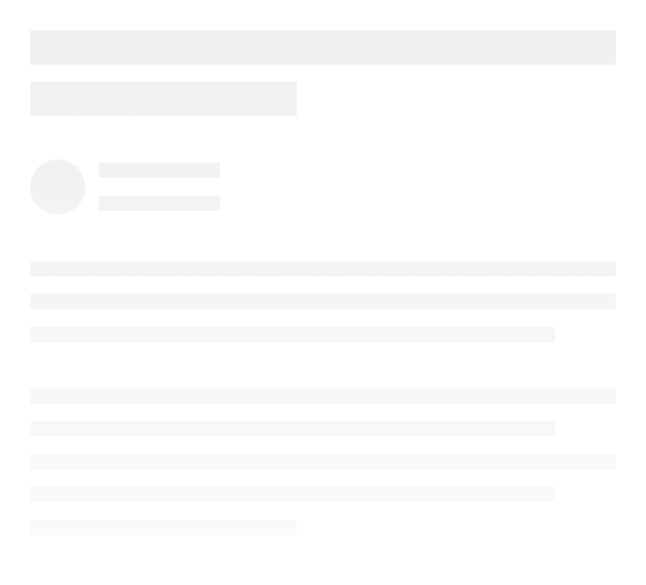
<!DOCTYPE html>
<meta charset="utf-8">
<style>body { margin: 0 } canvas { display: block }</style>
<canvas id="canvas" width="646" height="585"></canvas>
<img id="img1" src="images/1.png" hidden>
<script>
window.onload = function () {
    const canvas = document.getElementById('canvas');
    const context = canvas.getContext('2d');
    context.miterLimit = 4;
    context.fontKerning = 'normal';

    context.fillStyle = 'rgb(255, 255, 255)';
    context.fillRect(0, 0, 646, 585);
    context.drawImage(document.getElementById('img1'), 30, 30, 586, 505);
};
</script>
